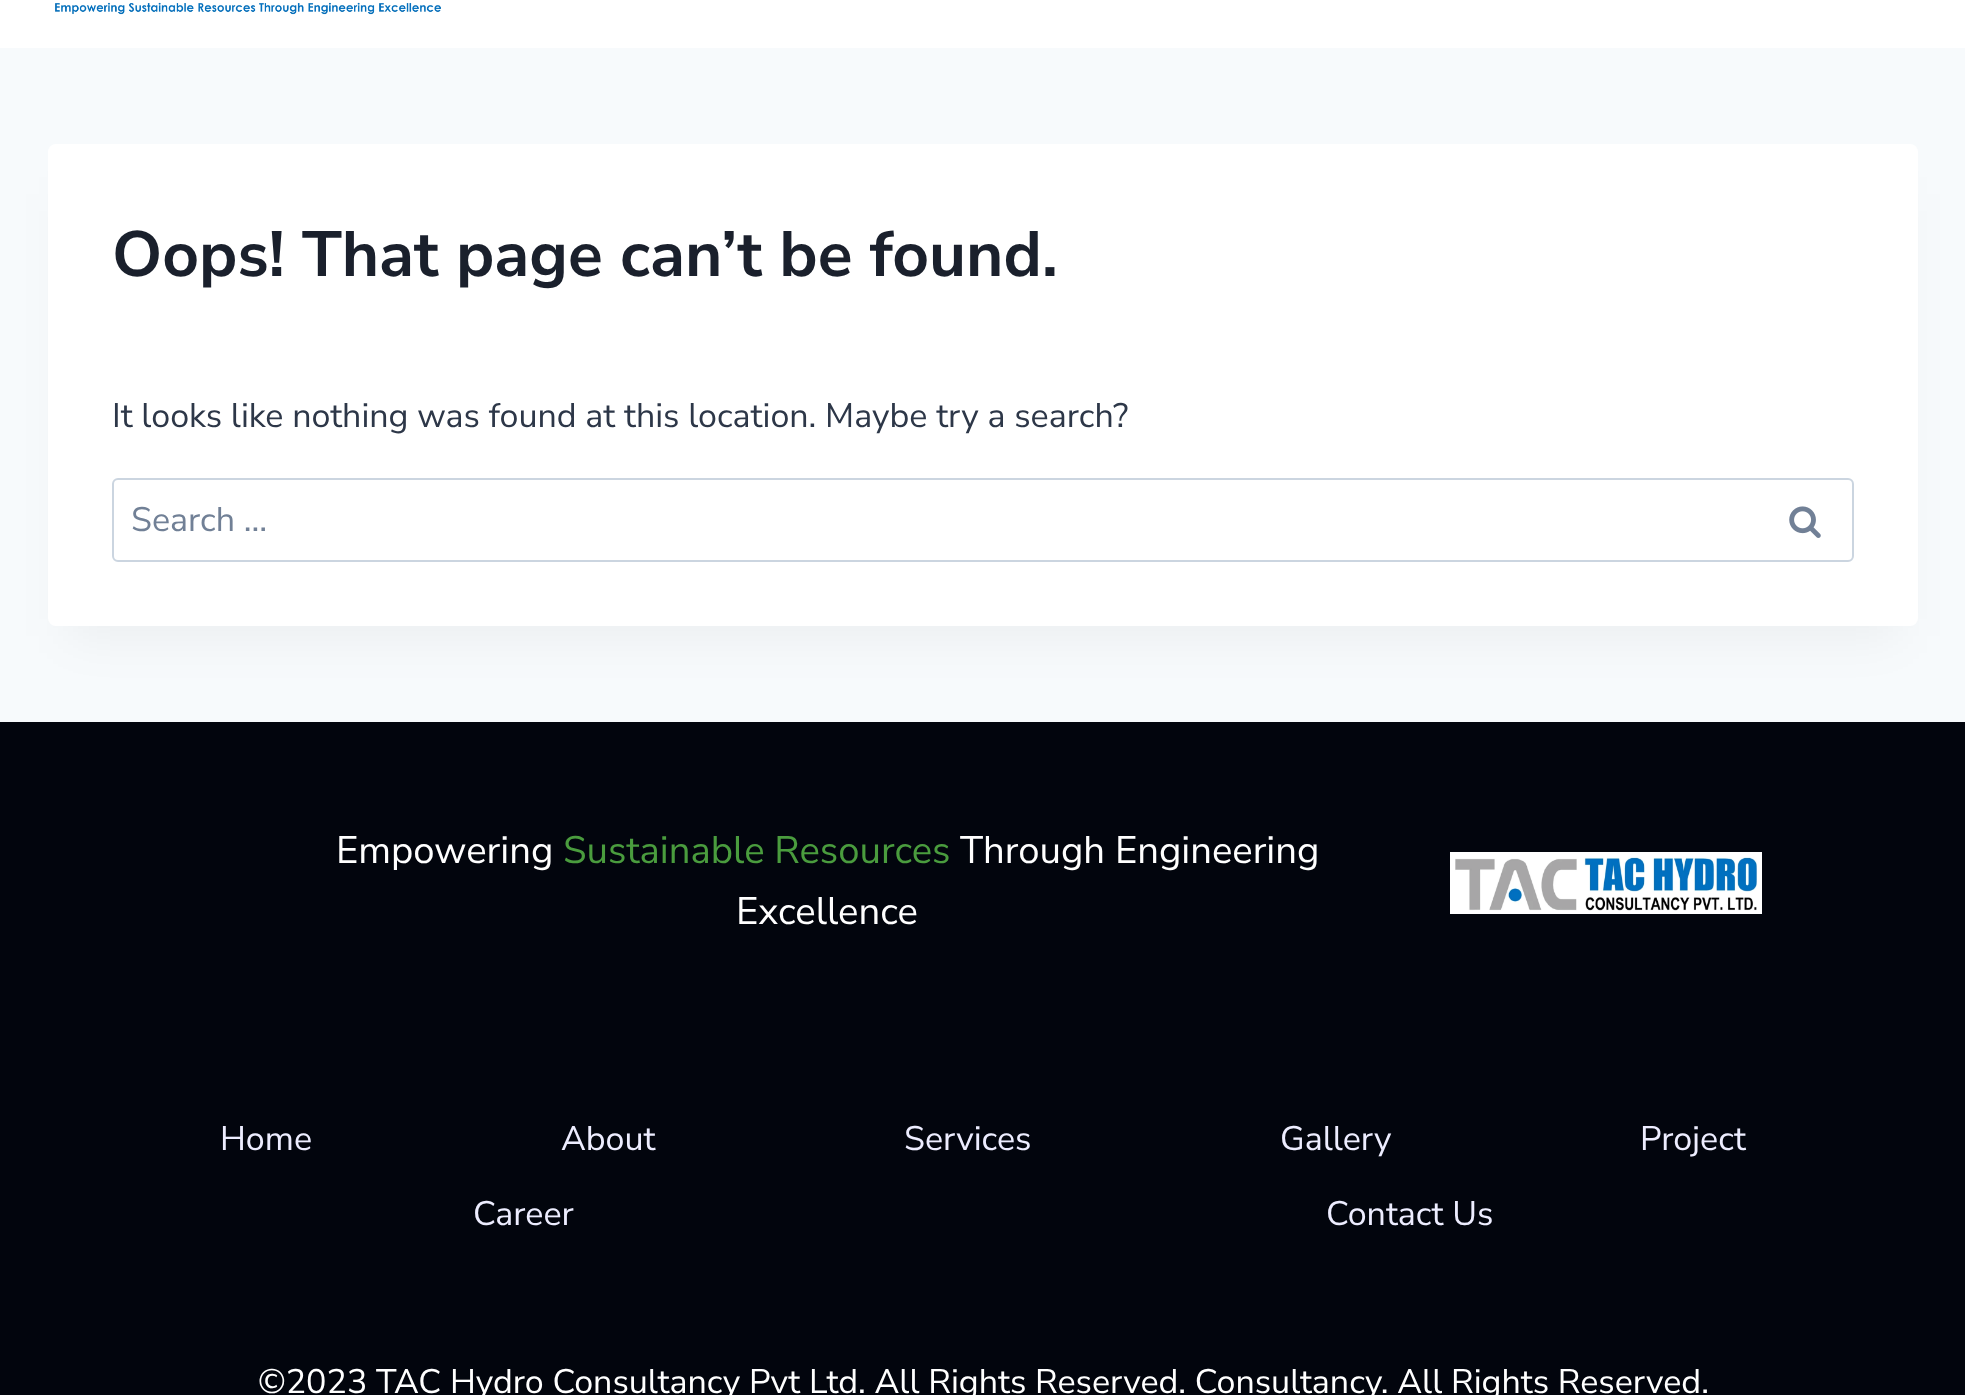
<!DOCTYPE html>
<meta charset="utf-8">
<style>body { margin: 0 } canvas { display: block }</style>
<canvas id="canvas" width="1965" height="1395"></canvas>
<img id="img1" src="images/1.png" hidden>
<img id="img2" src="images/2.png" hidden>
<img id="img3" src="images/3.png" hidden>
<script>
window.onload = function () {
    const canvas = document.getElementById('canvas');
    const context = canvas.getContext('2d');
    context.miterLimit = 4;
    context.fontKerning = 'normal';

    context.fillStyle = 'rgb(247, 250, 252)';
    context.fillRect(0, 0, 1965, 1395);
    context.fillStyle = 'rgb(255, 255, 255)';
    context.fillRect(0, 0, 1965, 48);
    context.drawImage(document.getElementById('img1'), 55, 2, 386, 13);
    context.fillStyle = 'rgba(0, 0, 0, 0.05)';
    context.filter = 'blur(25px)';
    context.beginPath();
    context.rect(68, 194, 1830, 442);
    context.fill();
    context.filter = 'none';
    context.fillStyle = 'rgb(255, 255, 255)';
    context.beginPath();
    context.roundRect(48, 144, 1870, 482, 8);
    context.fill();
    context.beginPath();
    context.roundRect(113, 479, 1740, 82, 5);
    context.strokeStyle = 'rgb(203, 213, 224)';
    context.lineWidth = 2;
    context.stroke();
    context.drawImage(document.getElementById('img2'), 1789, 506, 32, 32);
    context.fillStyle = 'rgb(2, 5, 13)';
    context.fillRect(0, 722, 1965, 673);
    context.drawImage(document.getElementById('img3'), 1450, 852, 312, 62);
    context.font = 'bold 64px Nunito Sans';
    context.fillStyle = 'rgb(26, 32, 44)';
    context.fillText('Oops! That page can’t be found.', 112, 276);
    context.font = '34px Nunito Sans';
    context.fillStyle = 'rgb(45, 55, 72)';
    context.fillText('It looks like nothing was found at this location. Maybe try a search?', 112, 427);
    context.fillStyle = 'rgb(113, 128, 150)';
    context.fillText('Search …', 131, 531);
    context.font = '38.25px Nunito Sans';
    context.fillStyle = 'rgb(255, 255, 255)';
    context.fillText('Empowering', 336, 863);
    context.fillStyle = 'rgb(74, 156, 62)';
    context.fillText('Sustainable Resources', 563, 863);
    context.fillStyle = 'rgb(255, 255, 255)';
    context.fillText('Through Engineering', 960, 863);
    context.fillText('Excellence', 736, 924);
    context.font = '34px Nunito Sans';
    context.fillStyle = 'rgb(237, 237, 255)';
    context.fillText('Home', 220, 1150);
    context.fillText('About', 561, 1150);
    context.fillText('Services', 904, 1150);
    context.fillText('Gallery', 1280, 1150);
    context.fillText('Project', 1640, 1150);
    context.fillText('Career', 473, 1225);
    context.fillText('Contact Us', 1326, 1225);
    context.fillStyle = 'rgb(255, 255, 255)';
    context.fillText('©2023 TAC Hydro Consultancy Pvt Ltd. All Rights Reserved. Consultancy. All Rights Reserved.', 258, 1393);
};
</script>
